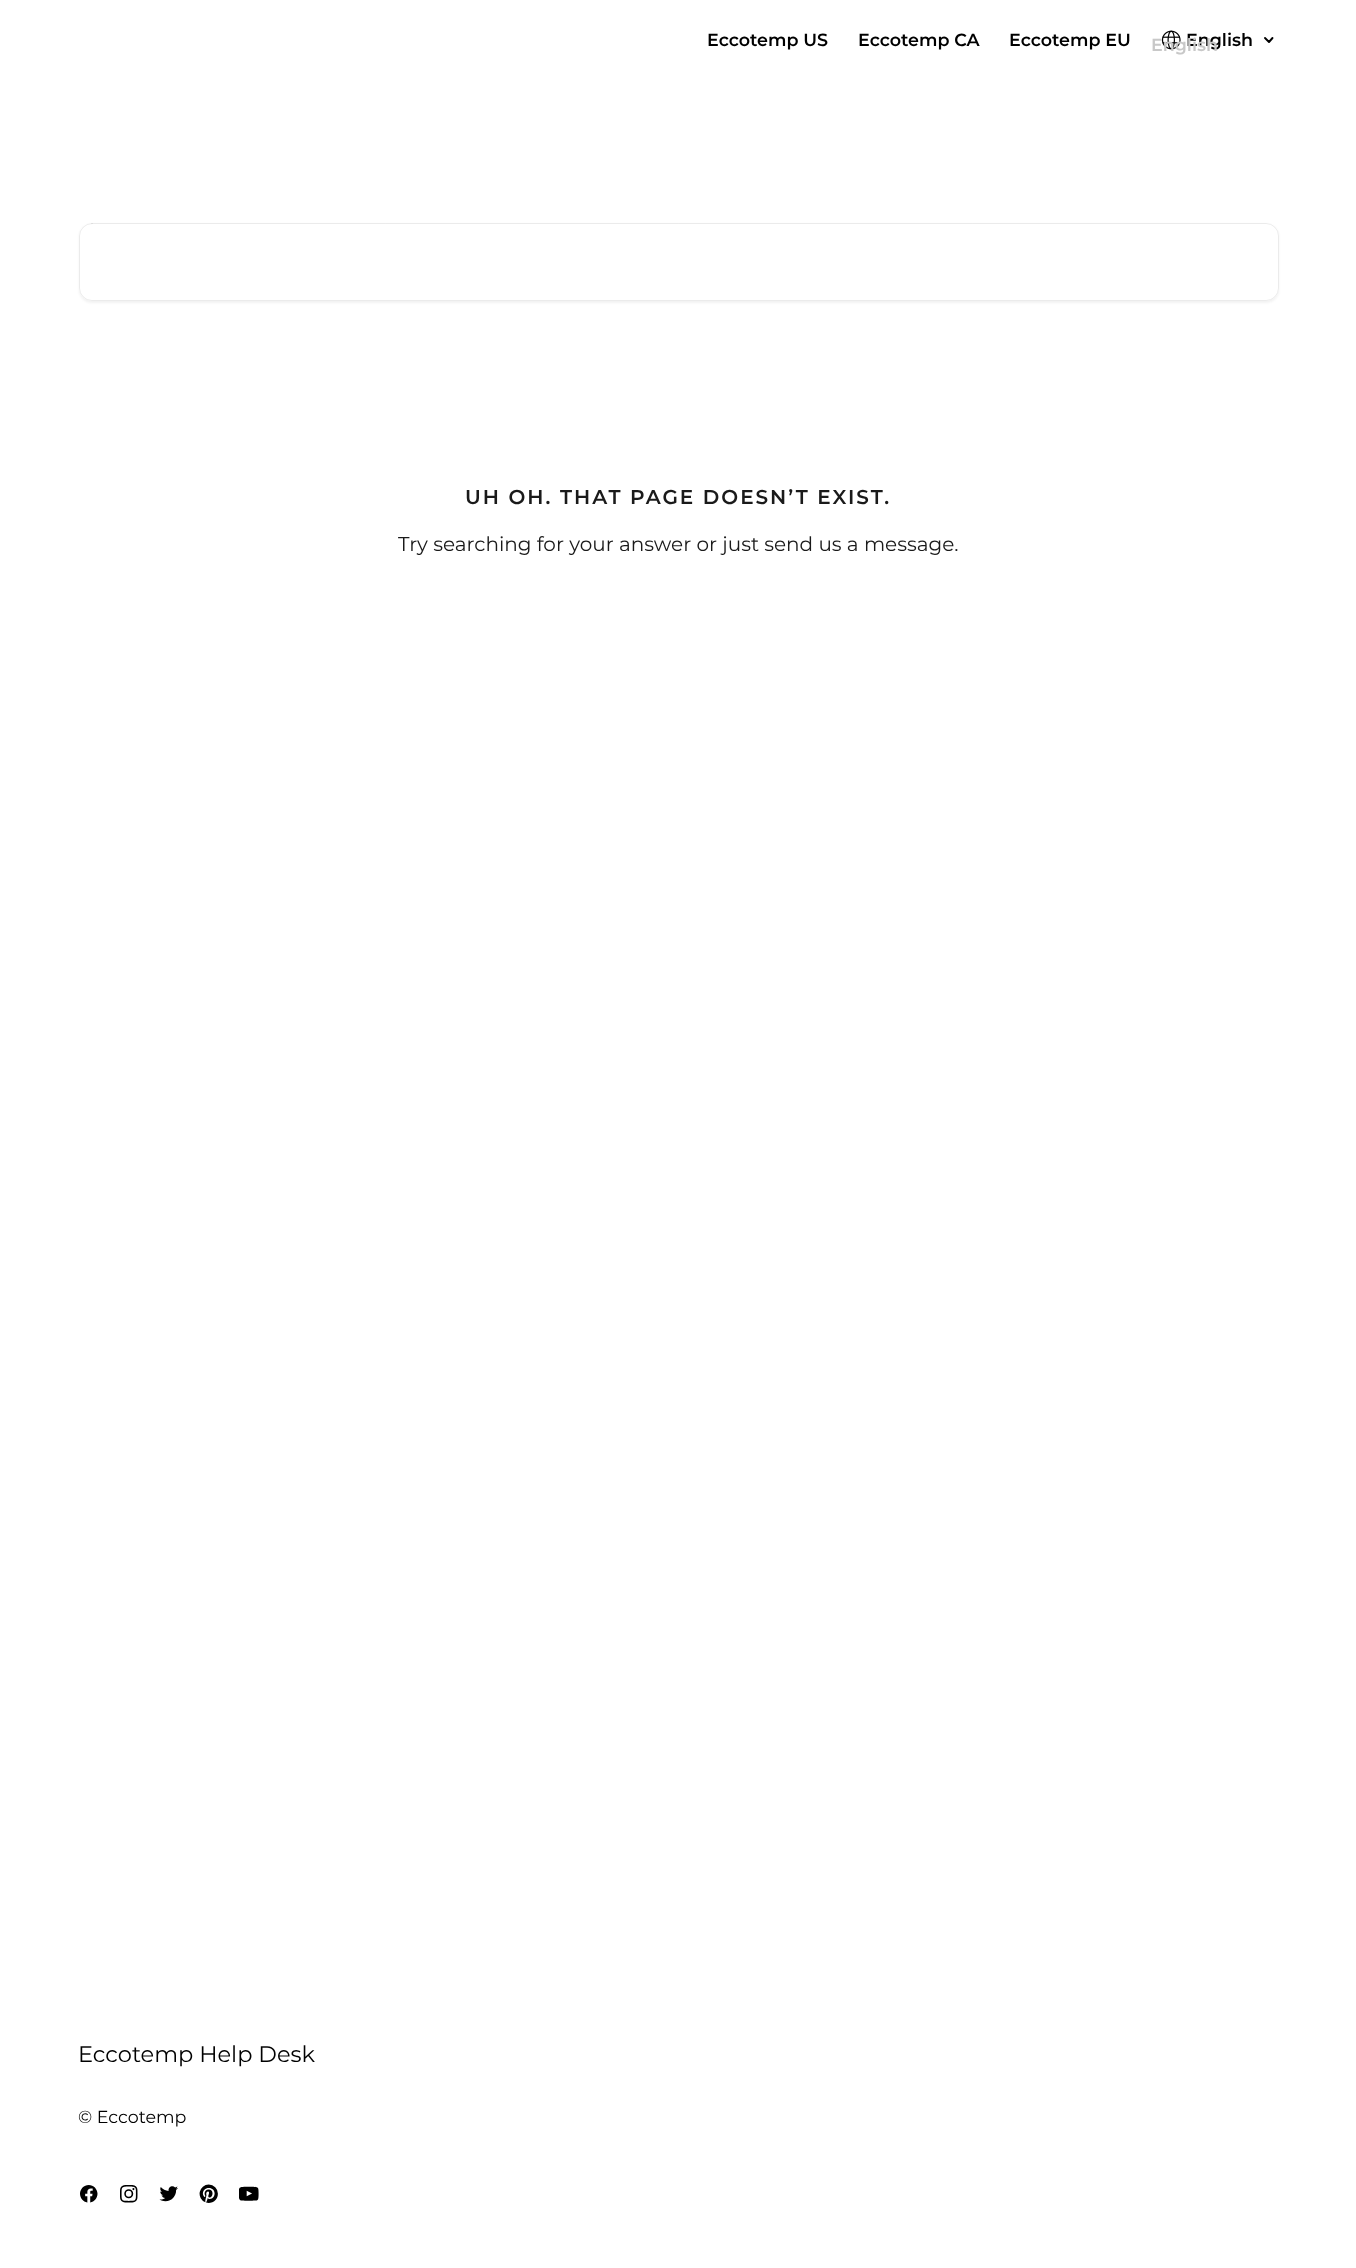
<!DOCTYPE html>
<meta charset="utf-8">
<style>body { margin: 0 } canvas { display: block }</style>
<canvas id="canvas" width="1356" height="2268"></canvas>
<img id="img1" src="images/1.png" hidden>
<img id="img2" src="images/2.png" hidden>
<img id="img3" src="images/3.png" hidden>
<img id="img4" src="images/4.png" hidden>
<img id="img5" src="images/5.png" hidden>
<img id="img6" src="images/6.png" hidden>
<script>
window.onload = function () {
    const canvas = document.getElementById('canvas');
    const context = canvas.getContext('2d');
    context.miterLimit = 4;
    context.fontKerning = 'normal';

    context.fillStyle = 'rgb(255, 255, 255)';
    context.fillRect(0, 0, 1356, 2268);
    context.drawImage(document.getElementById('img1'), 1161, 30, 20, 20);
    context.beginPath();
    context.moveTo(1265, 38);
    context.lineTo(1269, 42);
    context.lineTo(1272.5, 38);
    context.strokeStyle = 'rgb(0, 0, 0)';
    context.lineWidth = 1.9;
    context.lineCap = 'round';
    context.lineJoin = 'round';
    context.stroke();
    context.save();
    context.beginPath();
    context.moveTo(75, 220);
    context.lineTo(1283, 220);
    context.lineTo(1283, 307);
    context.lineTo(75, 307);
    context.closePath();
    context.moveTo(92, 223);
    context.lineTo(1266, 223);
    context.bezierCurveTo(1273, 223, 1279, 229, 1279, 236);
    context.lineTo(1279, 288);
    context.bezierCurveTo(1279, 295, 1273, 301, 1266, 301);
    context.lineTo(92, 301);
    context.bezierCurveTo(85, 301, 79, 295, 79, 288);
    context.lineTo(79, 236);
    context.bezierCurveTo(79, 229, 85, 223, 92, 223);
    context.closePath();
    context.clip('evenodd');
    context.fillStyle = 'rgba(0, 0, 0, 0.05)';
    context.filter = 'blur(1px)';
    context.beginPath();
    context.roundRect(79, 224, 1200, 79, 13);
    context.fill();
    context.filter = 'none';
    context.restore();
    context.beginPath();
    context.roundRect(79.5, 223.5, 1199, 77, 12.5);
    context.strokeStyle = 'rgba(0, 0, 0, 0.08)';
    context.lineWidth = 1;
    context.lineJoin = 'miter';
    context.stroke();
    context.drawImage(document.getElementById('img2'), 80, 2185, 18, 18);
    context.drawImage(document.getElementById('img3'), 120, 2185, 18, 18);
    context.drawImage(document.getElementById('img4'), 159, 2186, 19, 16);
    context.drawImage(document.getElementById('img5'), 199, 2184, 19, 19);
    context.drawImage(document.getElementById('img6'), 239, 2186, 20, 15);
    context.font = '600 17.5px Montserrat';
    context.fillStyle = 'rgb(0, 0, 0)';
    context.fillText('Eccotemp US', 707, 46);
    context.fillText('Eccotemp CA', 858, 46);
    context.fillText('Eccotemp EU', 1009, 46);
    context.fillText('English', 1186, 46);
    context.fillStyle = 'rgb(200, 200, 200)';
    context.fillText('English', 1151, 51);
    context.letterSpacing = '2px';
    context.font = '600 20px Montserrat';
    context.fillStyle = 'rgb(26, 26, 26)';
    context.fillText('UH OH. THAT PAGE DOESN’T EXIST.', 465, 504);
    context.letterSpacing = '0px';
    context.font = '20px Montserrat';
    context.fillText('Try searching for your answer or just send us a message.', 398, 551);
    context.font = '22.5px Montserrat';
    context.fillStyle = 'rgb(0, 0, 0)';
    context.fillText('Eccotemp Help Desk', 78, 2062);
    context.font = '17.5px Montserrat';
    context.fillText('© Eccotemp', 78, 2123);
};
</script>
